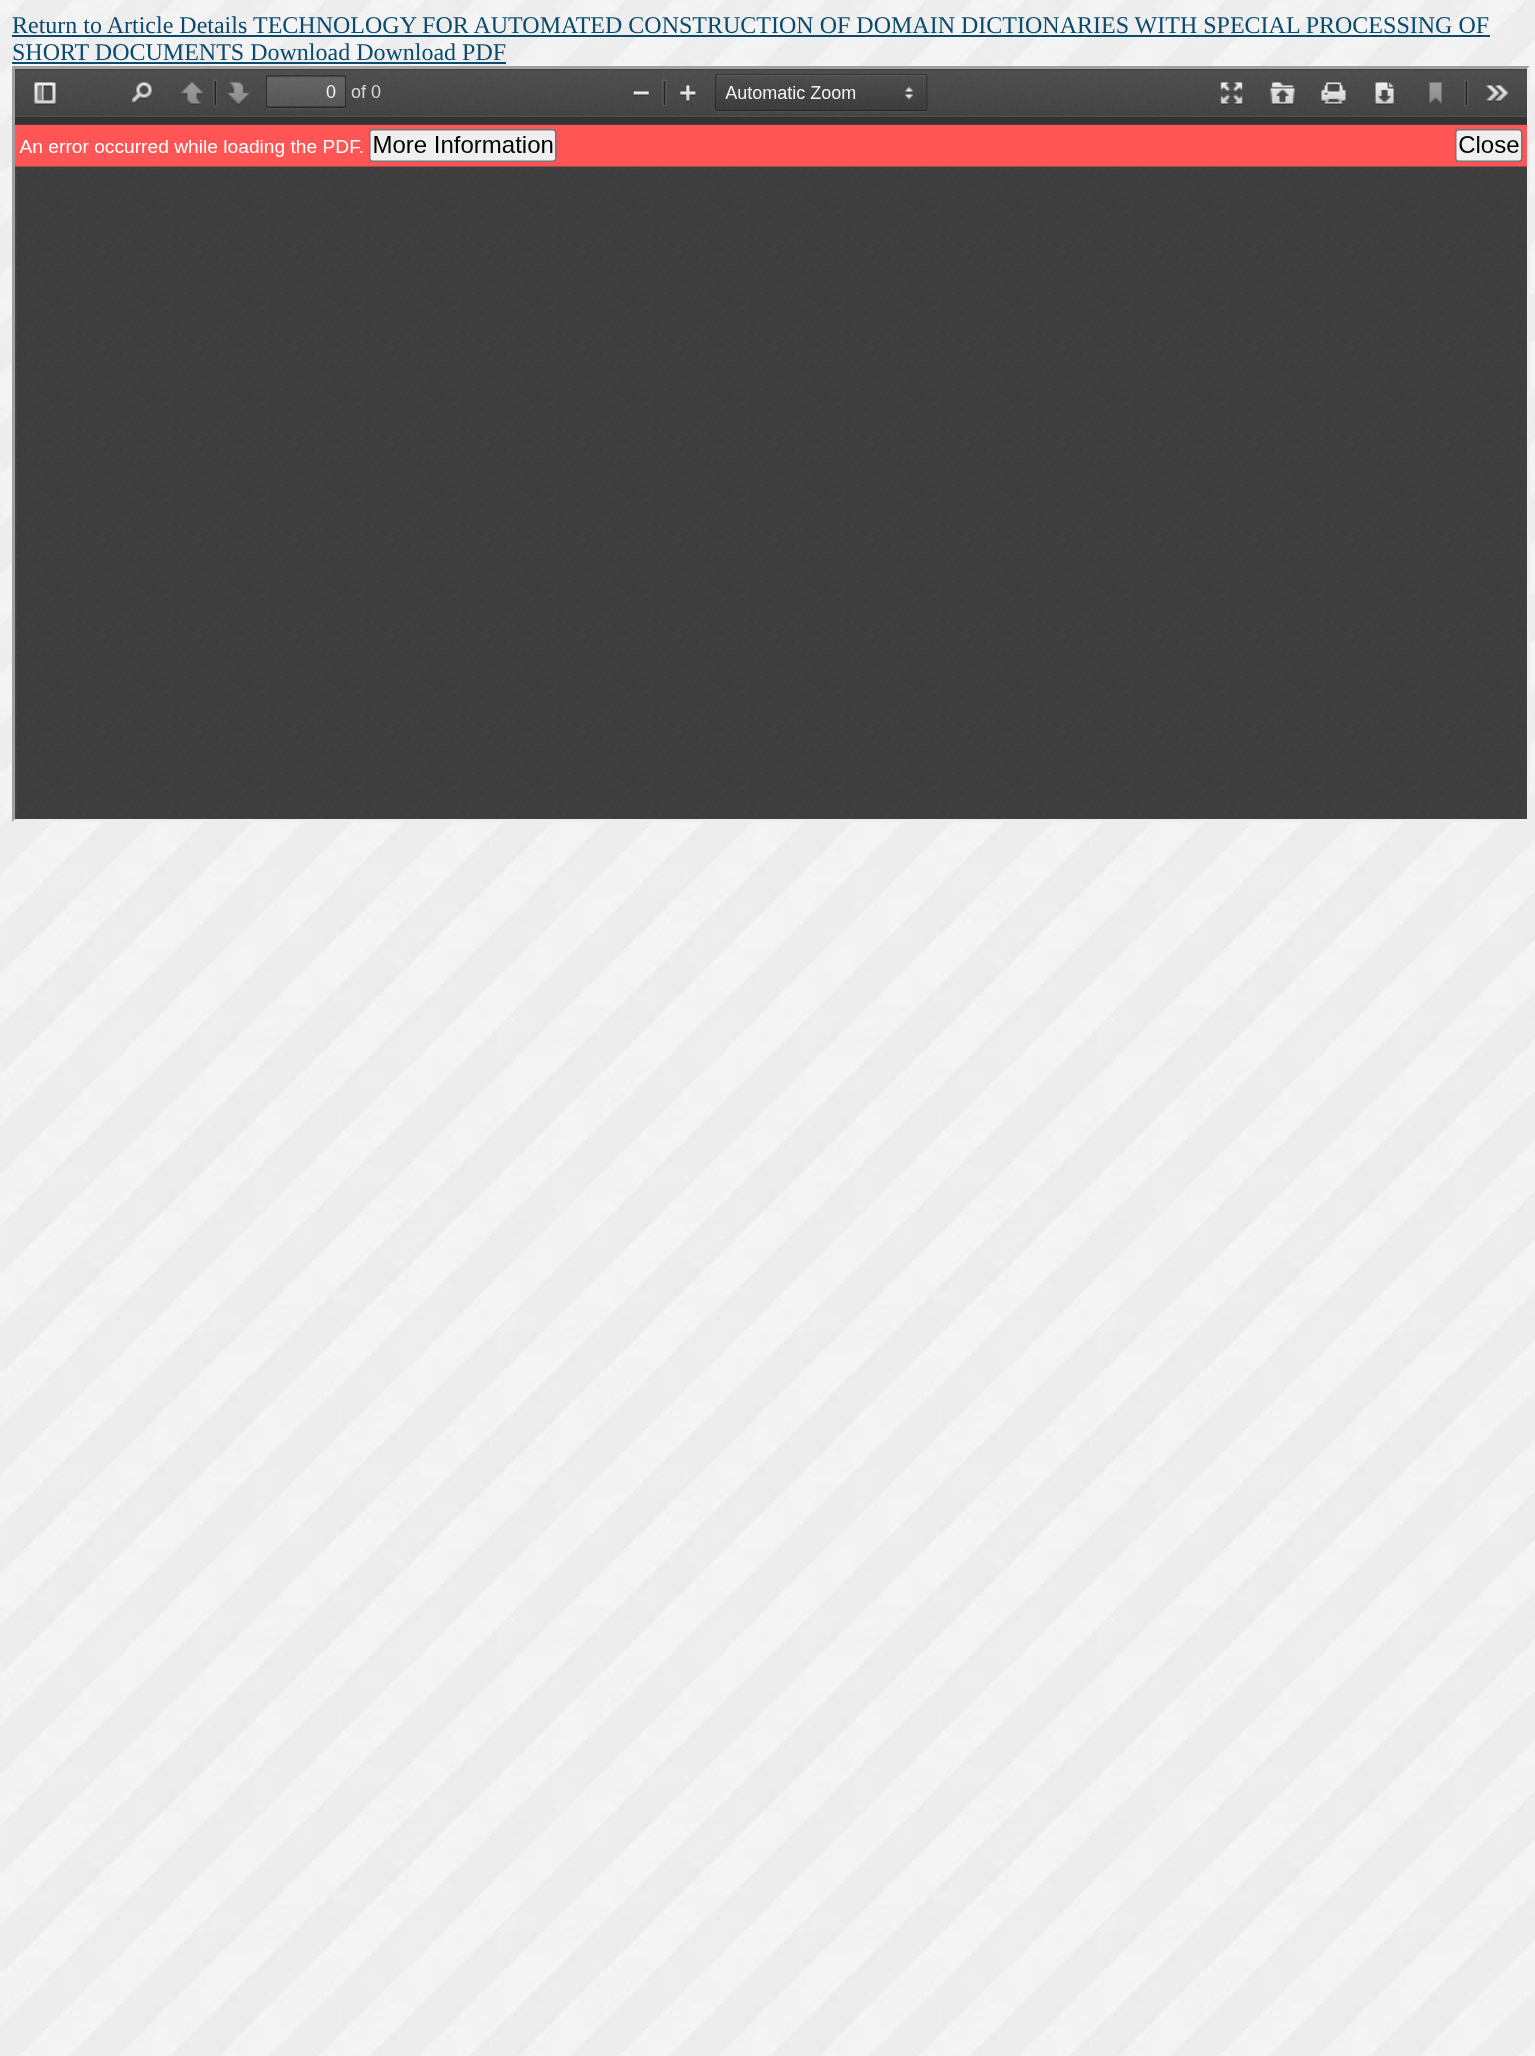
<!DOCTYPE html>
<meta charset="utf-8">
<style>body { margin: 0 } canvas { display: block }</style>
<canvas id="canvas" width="1535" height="2056"></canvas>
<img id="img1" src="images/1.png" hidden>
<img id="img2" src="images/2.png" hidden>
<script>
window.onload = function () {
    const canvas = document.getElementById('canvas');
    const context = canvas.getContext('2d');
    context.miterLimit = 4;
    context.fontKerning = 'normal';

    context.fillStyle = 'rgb(255, 255, 255)';
    context.fillRect(0, 0, 1535, 2056);
    context.drawImage(document.getElementById('img1'), 0, 0, 1535, 2056);
    context.fillStyle = 'rgb(10, 74, 108)';
    context.fillRect(12, 35, 1478, 2);
    context.fillRect(12, 62, 494, 2);
    context.fillStyle = 'rgb(159, 159, 159)';
    context.beginPath();
    context.moveTo(12, 66);
    context.lineTo(1530, 66);
    context.lineTo(1527, 69);
    context.lineTo(15, 69);
    context.closePath();
    context.fill();
    context.fillStyle = 'rgb(238, 238, 238)';
    context.beginPath();
    context.moveTo(1530, 66);
    context.lineTo(1530, 822);
    context.lineTo(1527, 819);
    context.lineTo(1527, 69);
    context.closePath();
    context.fill();
    context.beginPath();
    context.moveTo(1530, 822);
    context.lineTo(12, 822);
    context.lineTo(15, 819);
    context.lineTo(1527, 819);
    context.closePath();
    context.fill();
    context.fillStyle = 'rgb(159, 159, 159)';
    context.beginPath();
    context.moveTo(12, 822);
    context.lineTo(12, 66);
    context.lineTo(15, 69);
    context.lineTo(15, 819);
    context.closePath();
    context.fill();
    context.drawImage(document.getElementById('img2'), 15, 69, 1512, 750);
    context.font = '24px Liberation Serif';
    context.fillStyle = 'rgb(10, 74, 108)';
    context.fillText('Return to Article Details', 12, 33);
    context.fillText('TECHNOLOGY FOR AUTOMATED CONSTRUCTION OF DOMAIN DICTIONARIES WITH SPECIAL PROCESSING OF', 253, 33);
    context.fillText('SHORT DOCUMENTS Download Download PDF', 12, 60);
};
</script>
